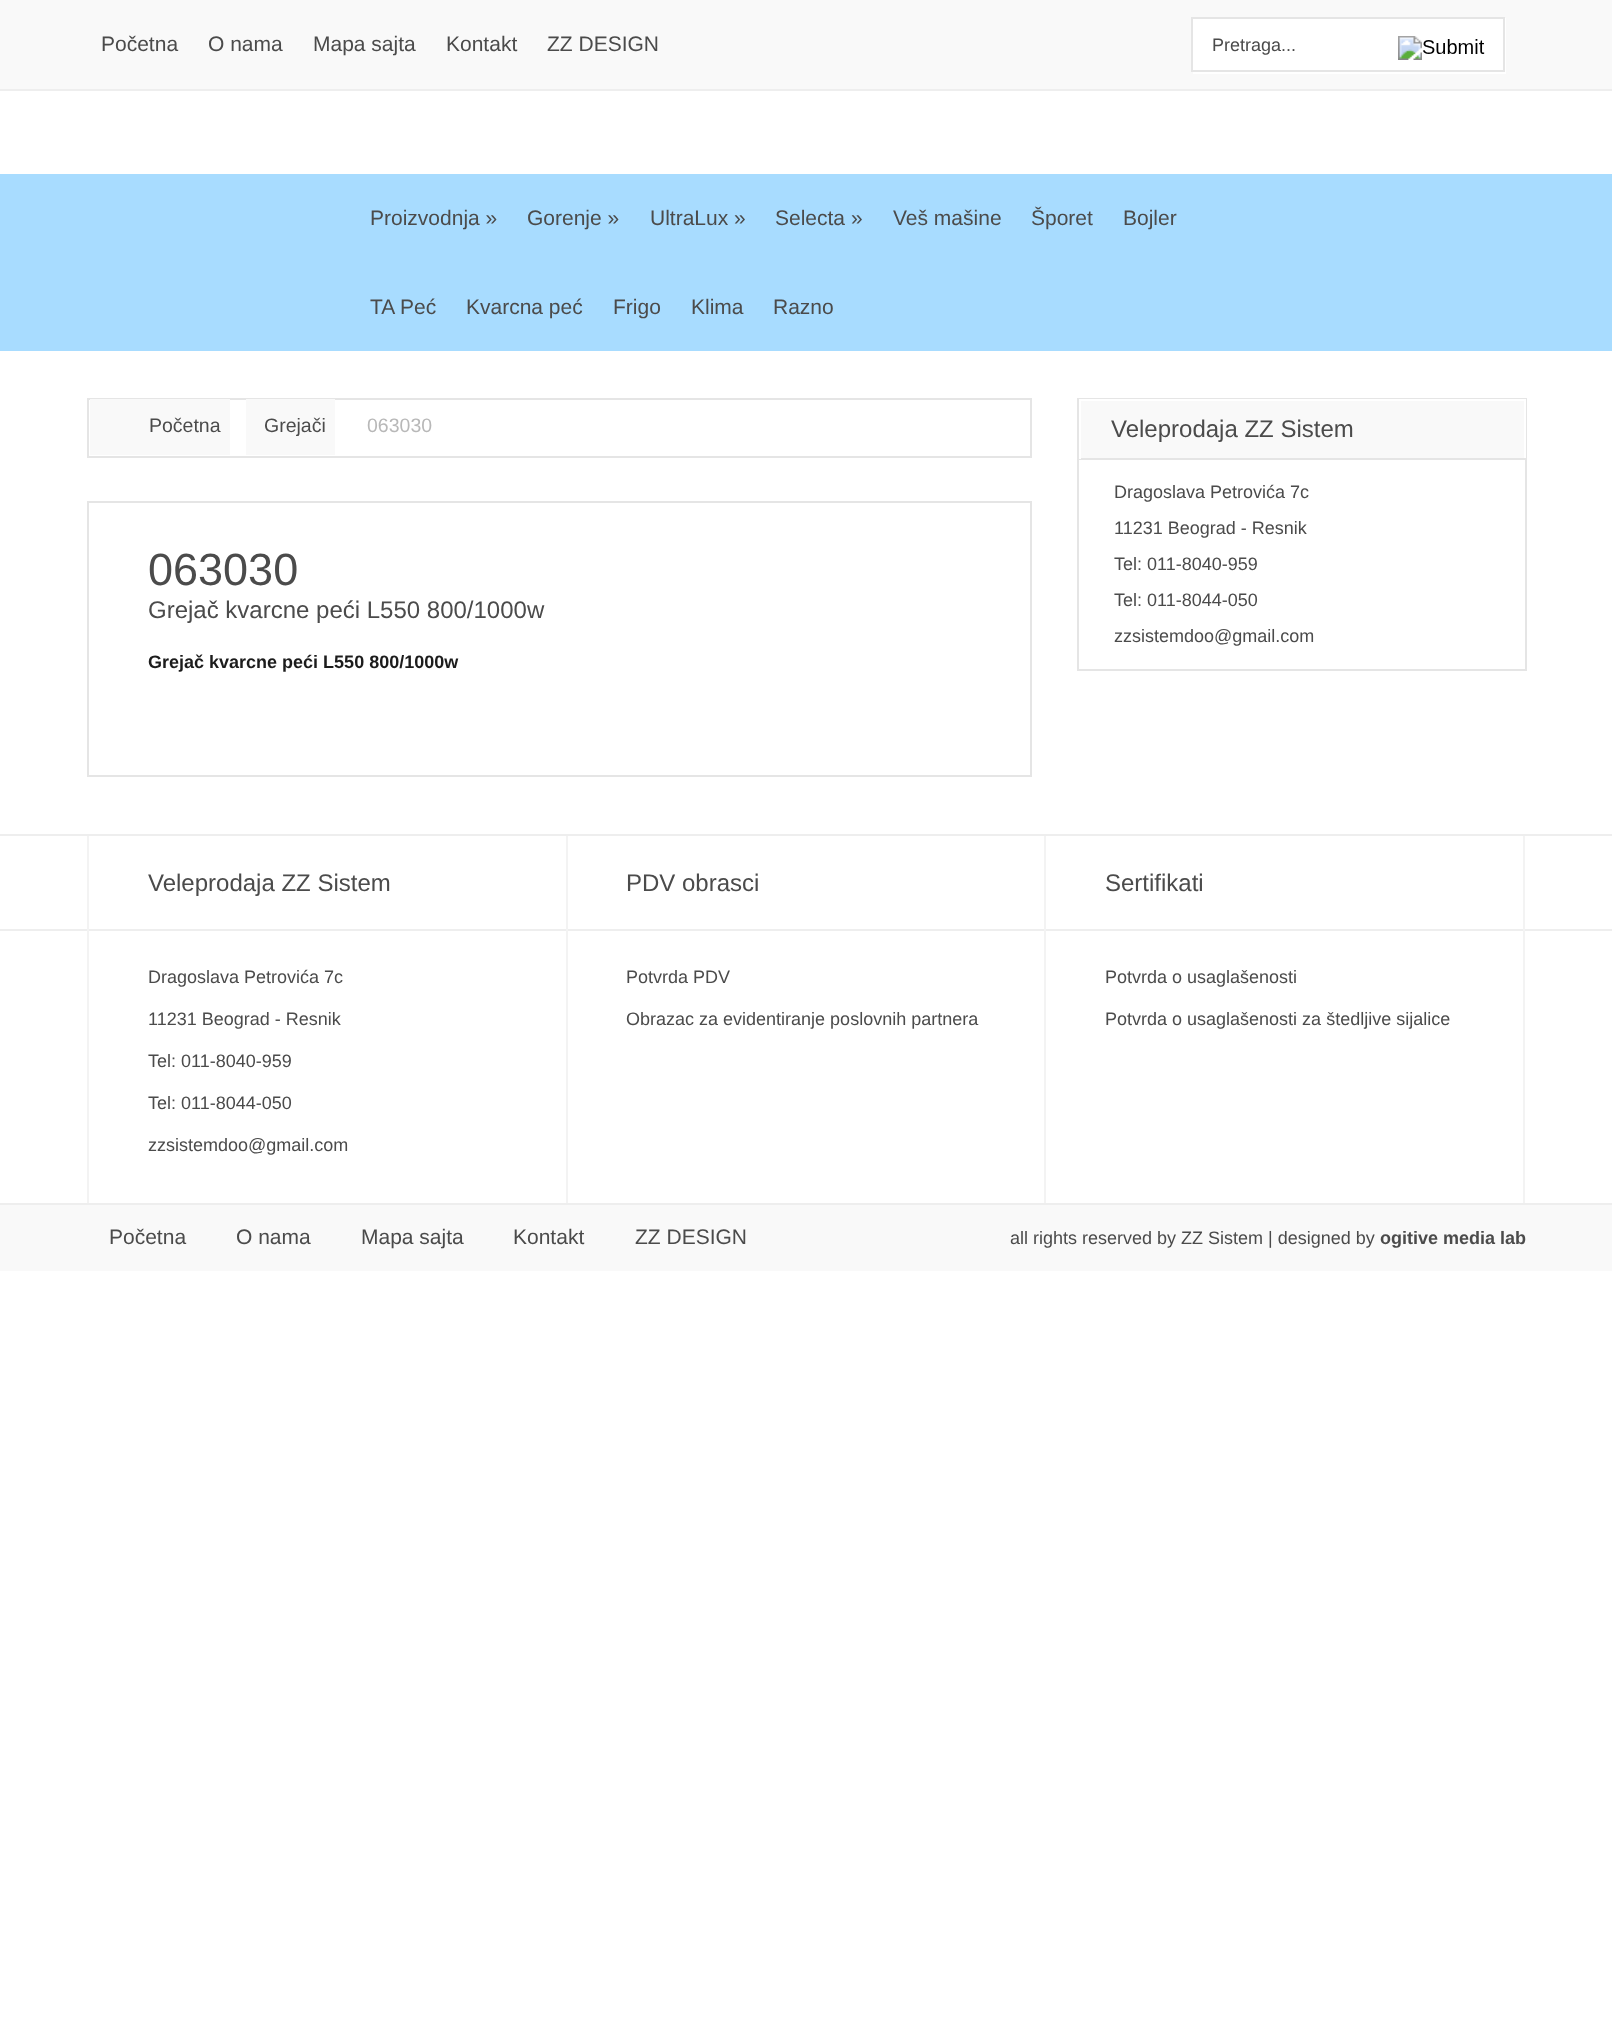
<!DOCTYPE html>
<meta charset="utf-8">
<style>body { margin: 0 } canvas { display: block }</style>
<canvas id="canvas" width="1612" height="2018"></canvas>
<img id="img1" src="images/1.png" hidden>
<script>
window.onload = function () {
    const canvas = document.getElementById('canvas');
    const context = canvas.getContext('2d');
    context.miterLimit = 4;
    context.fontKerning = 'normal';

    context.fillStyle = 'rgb(255, 255, 255)';
    context.fillRect(0, 0, 1612, 2018);
    context.fillStyle = 'rgb(249, 249, 249)';
    context.fillRect(0, 0, 1612, 89);
    context.fillStyle = 'rgb(238, 238, 238)';
    context.fillRect(0, 89, 1612, 2);
    context.fillStyle = 'rgb(255, 255, 255)';
    context.beginPath();
    context.moveTo(1193, 72);
    context.lineTo(1193, 74);
    context.lineTo(1506, 74);
    context.lineTo(1506, 18);
    context.lineTo(1504, 18);
    context.lineTo(1504, 72);
    context.closePath();
    context.fill();
    context.beginPath();
    context.rect(1192, 18, 312, 53);
    context.fill();
    context.strokeStyle = 'rgb(229, 229, 229)';
    context.lineWidth = 2;
    context.stroke();
    context.drawImage(document.getElementById('img1'), 1398, 36, 87, 24);
    context.fillStyle = 'rgb(168, 220, 255)';
    context.fillRect(0, 174, 1612, 177);
    context.fillStyle = 'rgb(238, 238, 238)';
    context.fillRect(0, 834, 1612, 2);
    context.strokeRect(88, 399, 943, 58);
    context.fillStyle = 'rgb(249, 249, 249)';
    context.fillRect(90, 399, 140, 56);
    context.fillRect(246, 399, 89, 56);
    context.strokeRect(88, 502, 943, 274);
    context.strokeRect(1078, 399, 448, 271);
    context.fillRect(1081, 401, 443, 57);
    context.fillStyle = 'rgb(255, 255, 255)';
    context.fillRect(1079, 399, 447, 2);
    context.fillRect(1525, 399, 1, 60);
    context.fillStyle = 'rgb(229, 229, 229)';
    context.fillRect(1079, 458, 447, 2);
    context.fillStyle = 'rgb(255, 255, 255)';
    context.fillRect(1079, 458, 2, 1);
    context.fillStyle = 'rgb(238, 238, 238)';
    context.fillRect(0, 1203, 1612, 2);
    context.fillRect(0, 929, 1612, 2);
    context.fillStyle = 'rgb(243, 243, 243)';
    context.fillRect(87, 836, 2, 367);
    context.fillRect(566, 836, 2, 367);
    context.fillRect(1523, 836, 2, 367);
    context.fillRect(1044, 836, 2, 367);
    context.fillStyle = 'rgb(249, 249, 249)';
    context.fillRect(0, 1205, 1612, 66);
    context.font = '21px Liberation Sans';
    context.fillStyle = 'rgb(75, 75, 75)';
    context.fillText('Početna', 101, 51);
    context.fillText('O nama', 208, 51);
    context.fillText('Mapa sajta', 313, 51);
    context.fillText('Kontakt', 446, 51);
    context.fillText('ZZ DESIGN', 547, 51);
    context.font = '18px Liberation Sans';
    context.fillText('Pretraga...', 1212, 51);
    context.font = '21px Liberation Sans';
    context.fillText('Proizvodnja »', 370, 225);
    context.fillText('Gorenje »', 527, 225);
    context.fillText('UltraLux »', 650, 225);
    context.fillText('Selecta »', 775, 225);
    context.fillText('Veš mašine', 893, 225);
    context.fillText('Šporet', 1031, 225);
    context.fillText('Bojler', 1123, 225);
    context.fillText('TA Peć', 370, 314);
    context.fillText('Kvarcna peć', 466, 314);
    context.fillText('Frigo', 613, 314);
    context.fillText('Klima', 691, 314);
    context.fillText('Razno', 773, 314);
    context.font = '19.5px Liberation Sans';
    context.fillText('Početna', 149, 432);
    context.fillText('Grejači', 264, 432);
    context.fillStyle = 'rgb(184, 184, 184)';
    context.fillText('063030', 367, 432);
    context.font = '45px Liberation Sans';
    context.fillStyle = 'rgb(75, 75, 75)';
    context.fillText('063030', 148, 585);
    context.font = '24px Liberation Sans';
    context.fillText('Grejač kvarcne peći L550 800/1000w', 148, 618);
    context.font = 'bold 18px Liberation Sans';
    context.fillStyle = 'rgb(28, 28, 28)';
    context.fillText('Grejač kvarcne peći L550 800/1000w', 148, 668);
    context.font = '24px Liberation Sans';
    context.fillStyle = 'rgb(75, 75, 75)';
    context.fillText('Veleprodaja ZZ Sistem', 1111, 437);
    context.font = '18px Liberation Sans';
    context.fillText('Dragoslava Petrovića 7c', 1114, 498);
    context.fillText('11231 Beograd - Resnik', 1114, 534);
    context.fillText('Tel: 011-8040-959', 1114, 570);
    context.fillText('Tel: 011-8044-050', 1114, 606);
    context.fillText('zzsistemdoo@gmail.com', 1114, 642);
    context.font = '24px Liberation Sans';
    context.fillText('Veleprodaja ZZ Sistem', 148, 891);
    context.font = '18px Liberation Sans';
    context.fillText('Dragoslava Petrovića 7c', 148, 983);
    context.fillText('11231 Beograd - Resnik', 148, 1025);
    context.fillText('Tel: 011-8040-959', 148, 1067);
    context.fillText('Tel: 011-8044-050', 148, 1109);
    context.fillText('zzsistemdoo@gmail.com', 148, 1151);
    context.font = '24px Liberation Sans';
    context.fillText('PDV obrasci', 626, 891);
    context.font = '18px Liberation Sans';
    context.fillText('Potvrda PDV', 626, 983);
    context.fillText('Obrazac za evidentiranje poslovnih partnera', 626, 1025);
    context.font = '24px Liberation Sans';
    context.fillText('Sertifikati', 1105, 891);
    context.font = '18px Liberation Sans';
    context.fillText('Potvrda o usaglašenosti', 1105, 983);
    context.fillText('Potvrda o usaglašenosti za štedljive sijalice', 1105, 1025);
    context.font = '21px Liberation Sans';
    context.fillText('Početna', 109, 1244);
    context.fillText('O nama', 236, 1244);
    context.fillText('Mapa sajta', 361, 1244);
    context.fillText('Kontakt', 513, 1244);
    context.fillText('ZZ DESIGN', 635, 1244);
    context.font = '18px Liberation Sans';
    context.fillText('all rights reserved by ZZ Sistem | designed by', 1010, 1244);
    context.font = 'bold 18px Liberation Sans';
    context.fillText('ogitive media lab', 1380, 1244);
};
</script>
